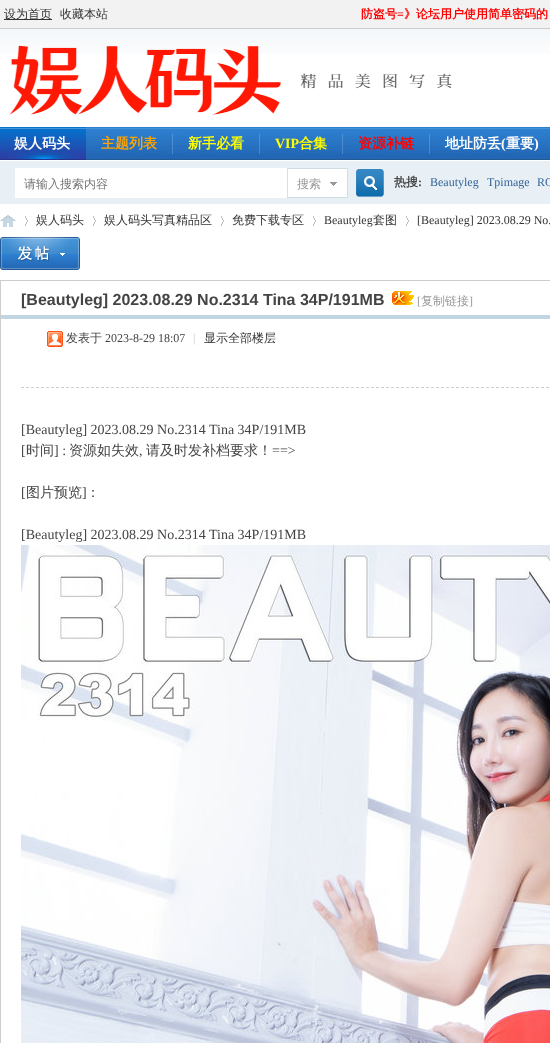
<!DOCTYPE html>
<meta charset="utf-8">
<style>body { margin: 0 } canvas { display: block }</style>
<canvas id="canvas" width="550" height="1043"></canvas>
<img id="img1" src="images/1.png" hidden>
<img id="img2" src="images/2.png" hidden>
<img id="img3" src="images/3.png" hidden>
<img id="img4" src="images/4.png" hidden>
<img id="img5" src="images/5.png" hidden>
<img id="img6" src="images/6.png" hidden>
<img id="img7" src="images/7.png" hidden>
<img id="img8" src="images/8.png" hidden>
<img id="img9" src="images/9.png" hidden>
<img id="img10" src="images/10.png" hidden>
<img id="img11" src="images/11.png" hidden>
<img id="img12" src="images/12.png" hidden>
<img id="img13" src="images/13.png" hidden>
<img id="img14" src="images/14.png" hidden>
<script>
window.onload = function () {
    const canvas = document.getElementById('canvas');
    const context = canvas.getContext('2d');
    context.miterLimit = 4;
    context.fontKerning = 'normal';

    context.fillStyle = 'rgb(255, 255, 255)';
    context.fillRect(0, 0, 550, 1043);
    context.drawImage(document.getElementById('img1'), 0, 29, 550, 25);
    context.fillStyle = 'rgb(242, 242, 242)';
    context.fillRect(0, 0, 550, 28);
    context.fillStyle = 'rgb(205, 205, 205)';
    context.fillRect(0, 28, 550, 1);
    context.fillStyle = 'rgb(51, 51, 51)';
    context.fillRect(4, 19, 48, 1);
    context.drawImage(document.getElementById('img2'), 9, 45, 443, 70);
    context.drawImage(document.getElementById('img3'), 86, 127, 464, 33);
    context.drawImage(document.getElementById('img4'), 0, 127, 86, 33);
    context.drawImage(document.getElementById('img5'), 172, 134, 1, 20);
    context.drawImage(document.getElementById('img5'), 259, 134, 1, 20);
    context.drawImage(document.getElementById('img6'), 342, 134, 1, 20);
    context.drawImage(document.getElementById('img5'), 429, 134, 1, 20);
    context.fillStyle = 'rgb(232, 239, 245)';
    context.fillRect(0, 161, 550, 43);
    context.fillStyle = 'rgb(255, 255, 255)';
    context.fillRect(15, 168, 272, 30);
    context.drawImage(document.getElementById('img7'), 356, 169, 28, 28);
    context.drawImage(document.getElementById('img8'), 287, 168, 61, 30);
    context.drawImage(document.getElementById('img9'), 0, 215, 16, 12);
    context.drawImage(document.getElementById('img10'), 25, 216, 3, 10);
    context.drawImage(document.getElementById('img10'), 93, 216, 3, 10);
    context.drawImage(document.getElementById('img10'), 221, 216, 3, 10);
    context.drawImage(document.getElementById('img10'), 313, 216, 3, 10);
    context.drawImage(document.getElementById('img10'), 406, 216, 3, 10);
    context.drawImage(document.getElementById('img11'), 0, 237, 80, 33);
    context.strokeStyle = 'rgb(205, 205, 205)';
    context.strokeRect(0.5, 280.5, 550, 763);
    context.drawImage(document.getElementById('img12'), 392, 291, 22, 14);
    context.fillStyle = 'rgb(194, 213, 227)';
    context.fillRect(1, 315, 549, 4);
    context.beginPath();
    context.moveTo(21, 387.5);
    context.lineTo(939, 387.5);
    context.setLineDash([3, 2]);
    context.stroke();
    context.drawImage(document.getElementById('img13'), 47, 331, 16, 16);
    context.drawImage(document.getElementById('img14'), 21, 545, 529, 498);
    context.font = '500 12px WenQuanYi Zen Hei';
    context.fillStyle = 'rgb(51, 51, 51)';
    context.fillText('设为首页', 4, 18);
    context.fillText('收藏本站', 60, 18);
    context.font = 'bold 12px WenQuanYi Zen Hei';
    context.fillStyle = 'rgb(255, 0, 0)';
    context.fillText('防盗号', 361, 18);
    context.font = 'bold 12px Liberation Serif';
    context.fillText('=', 397, 18);
    context.font = 'bold 12px WenQuanYi Zen Hei';
    context.fillText('》论坛用户使用简单密码的', 404, 18);
    context.font = 'bold 14px WenQuanYi Zen Hei';
    context.fillStyle = 'rgb(255, 255, 255)';
    context.fillText('娱人码头', 14, 148);
    context.fillStyle = 'rgb(255, 165, 0)';
    context.fillText('主题列表', 101, 148);
    context.fillStyle = 'rgb(255, 255, 0)';
    context.fillText('新手必看', 188, 148);
    context.font = 'bold 14px Liberation Serif';
    context.fillText('VIP', 275, 148);
    context.font = 'bold 14px WenQuanYi Zen Hei';
    context.fillText('合集', 299, 148);
    context.fillStyle = 'rgb(255, 0, 0)';
    context.fillText('资源补链', 358, 148);
    context.fillStyle = 'rgb(255, 255, 255)';
    context.fillText('地址防丢', 445, 148);
    context.font = 'bold 14px Liberation Serif';
    context.fillText('(', 501, 148);
    context.font = 'bold 14px WenQuanYi Zen Hei';
    context.fillText('重要', 506, 148);
    context.font = 'bold 14px Liberation Serif';
    context.fillText(')', 534, 148);
    context.font = 'bold 12px WenQuanYi Zen Hei';
    context.fillStyle = 'rgb(68, 68, 68)';
    context.fillText('热搜', 394, 186);
    context.font = 'bold 12px Liberation Serif';
    context.fillText(':', 418, 186);
    context.font = '12px Liberation Serif';
    context.fillStyle = 'rgb(51, 102, 153)';
    context.fillText('Beautyleg', 430, 186);
    context.fillText('Tpimage', 487, 186);
    context.fillText('RO', 537, 186);
    context.font = '500 12px WenQuanYi Zen Hei';
    context.fillStyle = 'rgb(117, 117, 117)';
    context.fillText('请输入搜索内容', 24, 188);
    context.fillStyle = 'rgb(153, 153, 153)';
    context.fillText('搜索', 297, 188);
    context.fillStyle = 'rgb(51, 51, 51)';
    context.fillText('娱人码头', 36, 224);
    context.fillText('娱人码头写真精品区', 104, 224);
    context.fillText('免费下载专区', 232, 224);
    context.font = '12px Liberation Serif';
    context.fillText('Beautyleg', 324, 224);
    context.font = '500 12px WenQuanYi Zen Hei';
    context.fillText('套图', 373, 224);
    context.font = '12px Liberation Serif';
    context.fillText('[Beautyleg] 2023.08.29 No.', 417, 224);
    context.font = 'bold 16px Liberation Sans';
    context.fillStyle = 'rgb(68, 68, 68)';
    context.fillText('[Beautyleg] 2023.08.29 No.2314 Tina 34P/191MB', 21, 305);
    context.font = '12px Liberation Serif';
    context.fillStyle = 'rgb(153, 153, 153)';
    context.fillText('[', 417, 305);
    context.font = '500 12px WenQuanYi Zen Hei';
    context.fillText('复制链接', 421, 305);
    context.font = '12px Liberation Serif';
    context.fillText(']', 469, 305);
    context.font = '500 12px WenQuanYi Zen Hei';
    context.fillStyle = 'rgb(68, 68, 68)';
    context.fillText('发表于', 66, 342);
    context.font = '12px Liberation Serif';
    context.fillText('2023-8-29 18:07', 105, 342);
    context.fillStyle = 'rgb(204, 204, 204)';
    context.fillText('|', 193, 342);
    context.font = '500 12px WenQuanYi Zen Hei';
    context.fillStyle = 'rgb(51, 51, 51)';
    context.fillText('显示全部楼层', 204, 342);
    context.font = '14px Liberation Serif';
    context.fillStyle = 'rgb(68, 68, 68)';
    context.fillText('[Beautyleg] 2023.08.29 No.2314 Tina 34P/191MB', 21, 434);
    context.fillText('[', 21, 455);
    context.font = '500 14px WenQuanYi Zen Hei';
    context.fillText('时间', 26, 455);
    context.font = '14px Liberation Serif';
    context.fillText('] :', 54, 455);
    context.font = '500 14px WenQuanYi Zen Hei';
    context.fillText('资源如失效', 69, 455);
    context.fillText('请及时发补档要求！', 146, 455);
    context.font = '14px Liberation Serif';
    context.fillText('==>', 272, 455);
    context.fillText(',', 139, 455);
    context.fillText('[', 21, 497);
    context.font = '500 14px WenQuanYi Zen Hei';
    context.fillText('图片预览', 26, 497);
    context.font = '14px Liberation Serif';
    context.fillText(']', 82, 497);
    context.font = '500 14px WenQuanYi Zen Hei';
    context.fillText('：', 86, 497);
    context.font = '14px Liberation Serif';
    context.fillText('[Beautyleg] 2023.08.29 No.2314 Tina 34P/191MB', 21, 539);
};
</script>
